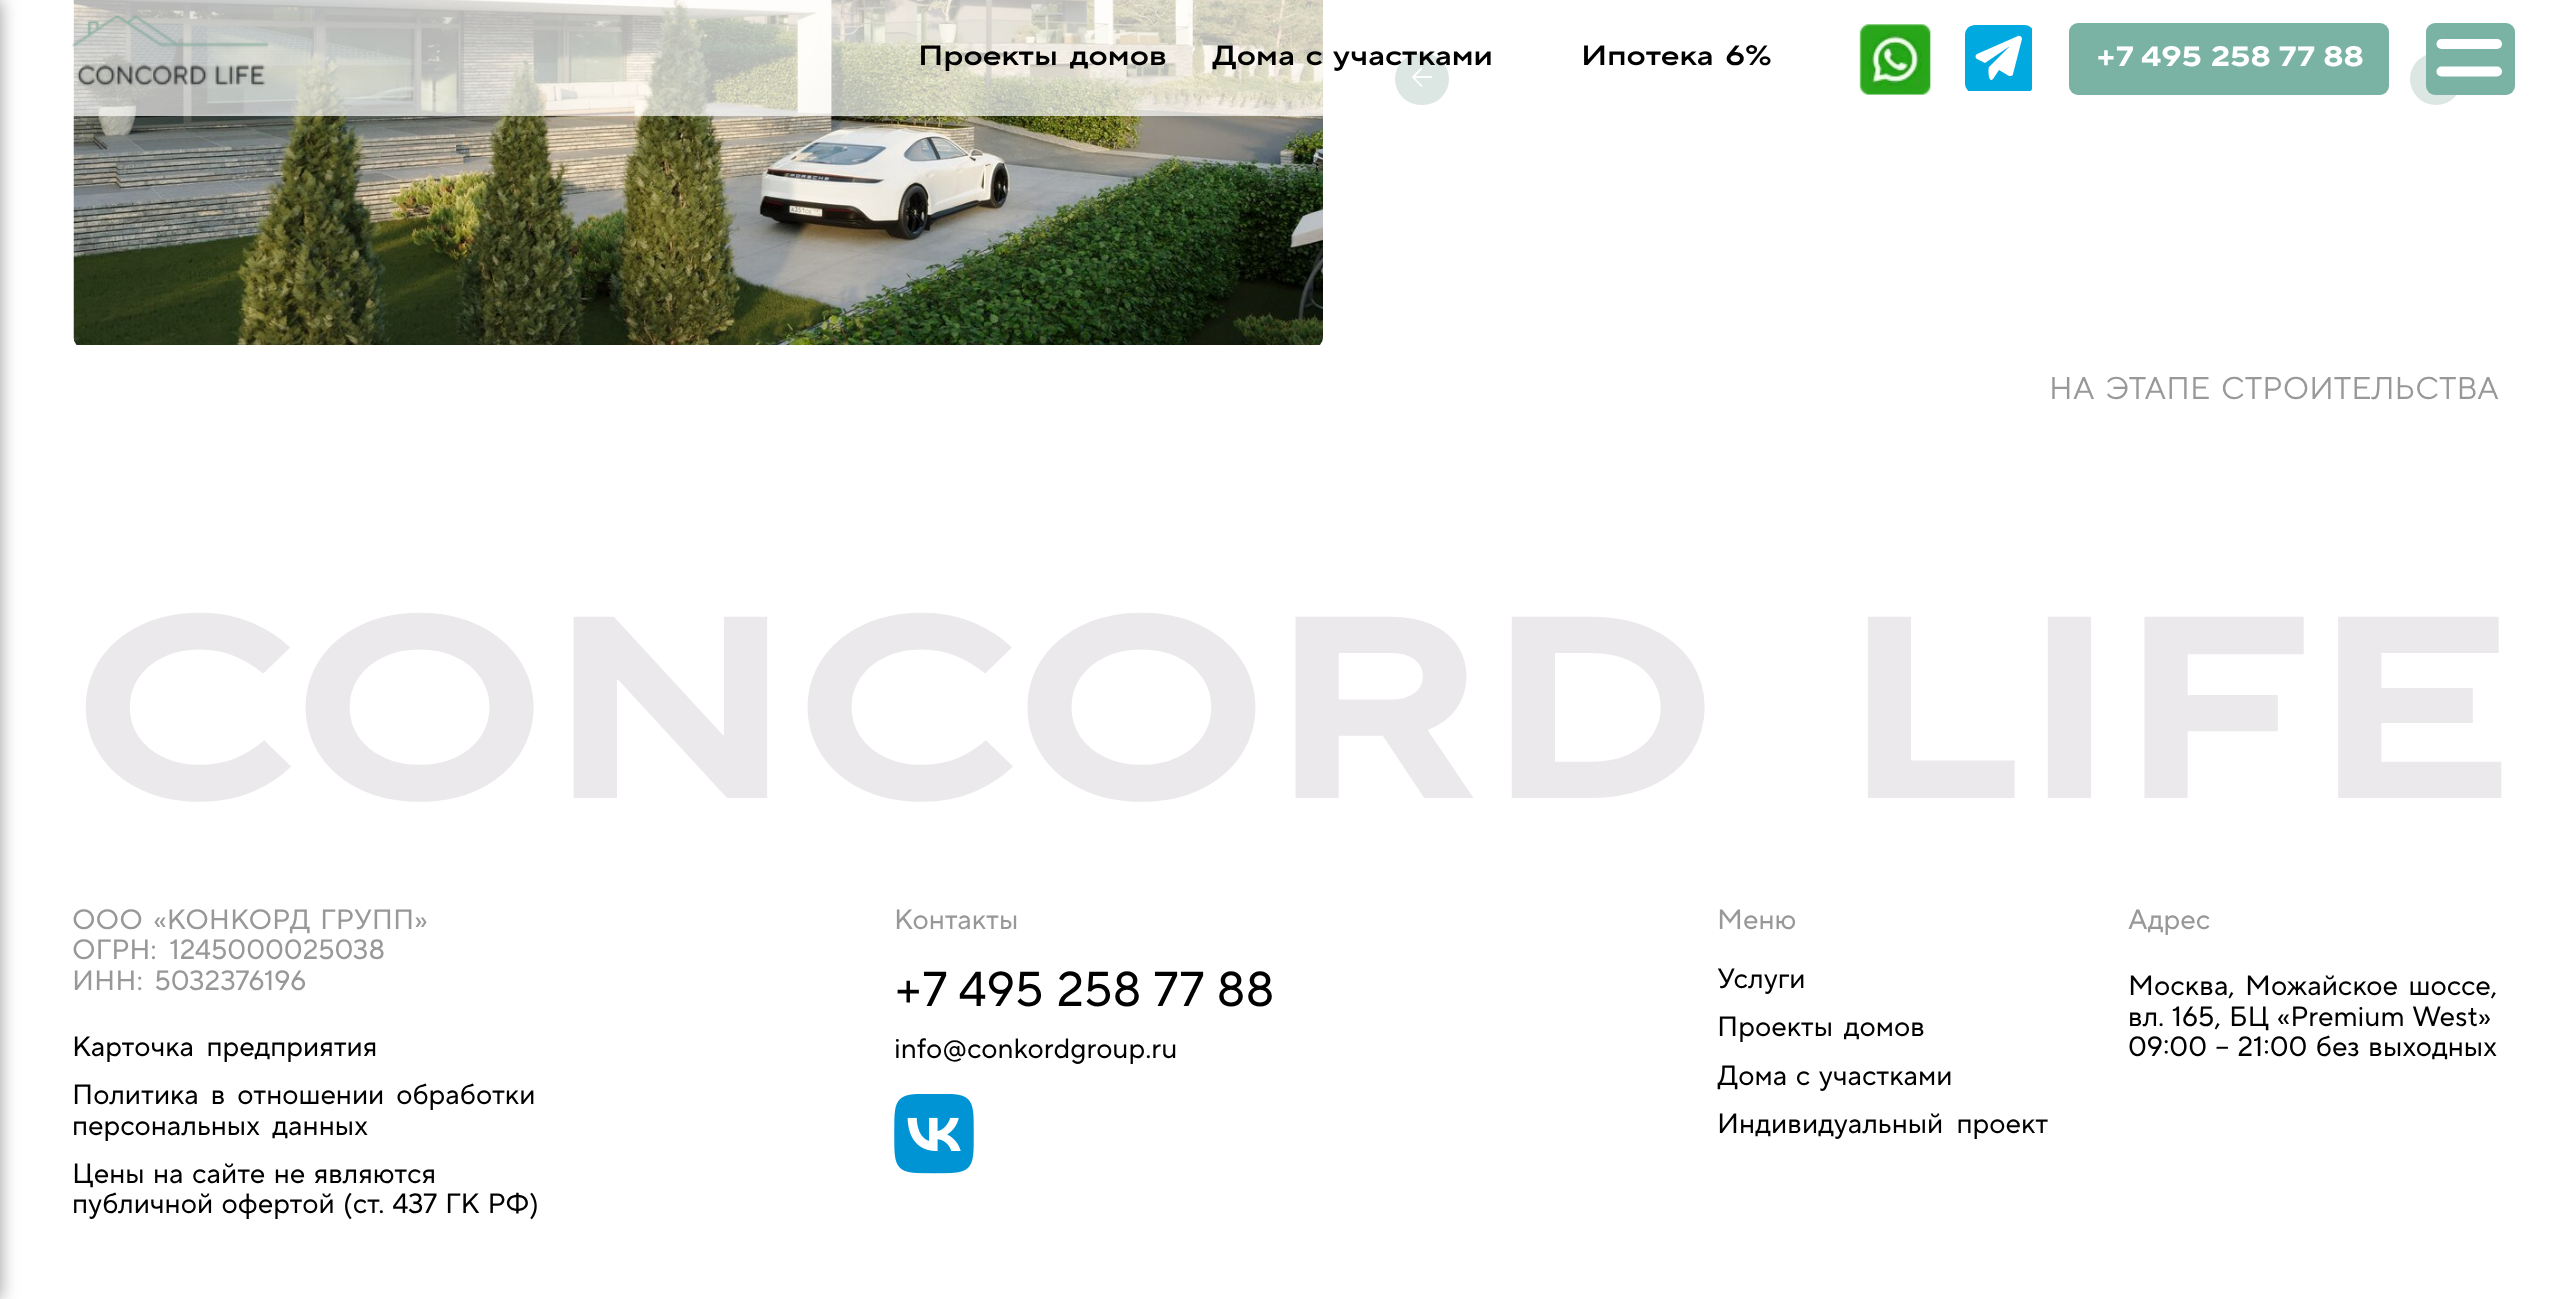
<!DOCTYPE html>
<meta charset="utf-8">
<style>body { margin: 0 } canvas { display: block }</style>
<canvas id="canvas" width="2574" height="1299"></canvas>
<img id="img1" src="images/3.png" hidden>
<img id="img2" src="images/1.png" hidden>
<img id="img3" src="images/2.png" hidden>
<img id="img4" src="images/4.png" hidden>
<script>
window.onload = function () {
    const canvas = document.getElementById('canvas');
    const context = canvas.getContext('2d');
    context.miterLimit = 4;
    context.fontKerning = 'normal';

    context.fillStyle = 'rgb(255, 255, 255)';
    context.fillRect(0, 0, 2574, 1299);
    context.drawImage(document.getElementById('img1'), 73, 0, 1250, 345);
    context.fillStyle = 'rgb(137, 173, 163)';
    context.beginPath();
    context.roundRect(1395, 53, 54, 52, 26);
    context.fill();
    context.fillStyle = 'rgb(243, 247, 246)';
    context.fillRect(1413, 76, 19, 2);
    context.beginPath();
    context.moveTo(1422, 68);
    context.lineTo(1413, 77);
    context.lineTo(1422, 86.5);
    context.strokeStyle = 'rgb(255, 255, 255)';
    context.lineWidth = 1.8;
    context.stroke();
    context.fillStyle = 'rgb(137, 173, 163)';
    context.beginPath();
    context.arc(2436, 79, 26, 0, 2 * Math.PI);
    context.fill();
    context.fillStyle = 'rgba(255, 255, 255, 0.7)';
    context.beginPath();
    context.moveTo(0, 0);
    context.lineTo(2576, 0);
    context.lineTo(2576, 81);
    context.bezierCurveTo(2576, 100.5, 2560.5, 116, 2541, 116);
    context.lineTo(35, 116);
    context.bezierCurveTo(15.5, 116, 0, 100.5, 0, 81);
    context.closePath();
    context.fill();
    context.fillStyle = 'rgba(0, 0, 0, 0.4)';
    context.filter = 'blur(9px)';
    context.beginPath();
    context.rect(-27, 0, 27, 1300);
    context.fill();
    context.filter = 'none';
    context.drawImage(document.getElementById('img2'), 71, 15, 198, 72);
    context.drawImage(document.getElementById('img3'), 1859, 24, 72, 71);
    context.save();
    context.beginPath();
    context.roundRect(1965, 25, 69, 68, 9);
    context.clip();
    context.fillStyle = 'rgb(1, 169, 225)';
    context.beginPath();
    context.roundRect(1965, 25, 67, 66, [9, 0, 0, 0]);
    context.fill();
    context.restore();
    context.fillStyle = 'rgb(255, 255, 255)';
    context.beginPath();
    context.moveTo(2022, 39);
    context.lineTo(2013, 74);
    context.bezierCurveTo(2013, 76, 2011, 76, 2009, 76);
    context.lineTo(1999, 70);
    context.lineTo(1993, 79);
    context.bezierCurveTo(1988, 84, 1988, 68, 1989, 67);
    context.lineTo(2010, 46);
    context.lineTo(1985, 63);
    context.lineTo(1977, 59);
    context.bezierCurveTo(1975, 58, 1975, 55, 1977, 54);
    context.lineTo(2018, 36);
    context.bezierCurveTo(2020, 35, 2022, 37, 2022, 39);
    context.closePath();
    context.fill('evenodd');
    context.fillStyle = 'rgb(122, 179, 164)';
    context.beginPath();
    context.roundRect(2069, 23, 320, 72, 9);
    context.fill();
    context.beginPath();
    context.roundRect(2426, 23, 89, 72, 9);
    context.fill();
    context.beginPath();
    context.moveTo(2441.5, 44);
    context.lineTo(2497, 44);
    context.lineWidth = 10.1;
    context.lineCap = 'round';
    context.lineJoin = 'round';
    context.stroke();
    context.beginPath();
    context.moveTo(2441.5, 71.5);
    context.lineTo(2497, 71.5);
    context.stroke();
    context.drawImage(document.getElementById('img4'), 894, 1094, 80, 80);
    context.wordSpacing = '5px';
    context.font = '600 28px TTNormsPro';
    context.fillStyle = 'rgb(0, 0, 0)';
    context.fillText('Проекты домов', 918, 65);
    context.wordSpacing = '3px';
    context.fillText('Дома с участками', 1212, 65);
    context.wordSpacing = '4px';
    context.fillText('Ипотека 6%', 1581, 65);
    context.wordSpacing = '1.5px';
    context.font = 'bold 28px TTNormsPro';
    context.fillStyle = 'rgb(255, 255, 255)';
    context.fillText('+7 495 258 77 88', 2096, 66);
    context.wordSpacing = '5px';
    context.font = '31.5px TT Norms';
    context.fillStyle = 'rgb(152, 152, 152)';
    context.fillText('НА ЭТАПЕ СТРОИТЕЛЬСТВА', 2049, 399);
    context.wordSpacing = '53px';
    context.font = 'bold 259px TTNormsPro';
    context.fillStyle = 'rgb(235, 233, 236)';
    context.fillText('CONCORD LIFE', 72, 798);
    context.wordSpacing = '4px';
    context.font = '28px TTNormsPro';
    context.fillStyle = 'rgb(152, 152, 152)';
    context.fillText('ООО «КОНКОРД ГРУПП»', 72, 929);
    context.wordSpacing = '7px';
    context.fillText('ОГРН: 1245000025038', 72, 959);
    context.wordSpacing = '5px';
    context.fillText('ИНН: 5032376196', 72, 990);
    context.wordSpacing = '6px';
    context.fillStyle = 'rgb(0, 0, 0)';
    context.fillText('Карточка предприятия', 72, 1056);
    context.wordSpacing = '5.5px';
    context.fillText('Политика в отношении обработки', 72, 1104);
    context.wordSpacing = '6px';
    context.fillText('персональных данных', 72, 1135);
    context.wordSpacing = '2px';
    context.fillText('Цены на сайте не являются', 72, 1183);
    context.fillText('публичной офертой (ст. 437 ГК РФ)', 72, 1213);
    context.wordSpacing = '0px';
    context.fillStyle = 'rgb(152, 152, 152)';
    context.fillText('Контакты', 894, 929);
    context.wordSpacing = '2px';
    context.font = '49px TTNormsPro';
    context.fillStyle = 'rgb(0, 0, 0)';
    context.fillText('+7 495 258 77 88', 894, 1006);
    context.wordSpacing = '0px';
    context.font = '28px TTNormsPro';
    context.fillText('info@conkordgroup.ru', 894, 1058);
    context.fillStyle = 'rgb(152, 152, 152)';
    context.fillText('Меню', 1717, 929);
    context.fillStyle = 'rgb(0, 0, 0)';
    context.fillText('Услуги', 1717, 988);
    context.wordSpacing = '4px';
    context.fillText('Проекты домов', 1717, 1036);
    context.wordSpacing = '2px';
    context.fillText('Дома с участками', 1717, 1085);
    context.wordSpacing = '7px';
    context.fillText('Индивидуальный проект', 1717, 1133);
    context.wordSpacing = '0px';
    context.fillStyle = 'rgb(152, 152, 152)';
    context.fillText('Адрес', 2128, 929);
    context.wordSpacing = '4px';
    context.fillStyle = 'rgb(0, 0, 0)';
    context.fillText('Москва, Можайское шоссе,', 2128, 995);
    context.wordSpacing = '2px';
    context.fillText('вл. 165, БЦ «Premium West»', 2128, 1026);
    context.fillText('09:00 – 21:00 без выходных', 2128, 1056);
};
</script>
